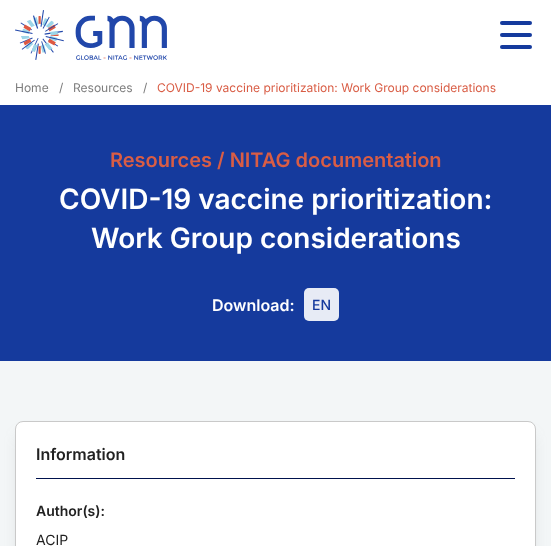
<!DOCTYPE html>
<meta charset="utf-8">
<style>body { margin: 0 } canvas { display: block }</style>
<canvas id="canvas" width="551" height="546"></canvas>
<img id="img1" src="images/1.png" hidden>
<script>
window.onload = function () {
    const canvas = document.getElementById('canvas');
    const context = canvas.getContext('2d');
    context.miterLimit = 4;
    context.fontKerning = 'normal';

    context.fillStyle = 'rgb(243, 246, 247)';
    context.fillRect(0, 0, 551, 546);
    context.fillStyle = 'rgb(255, 255, 255)';
    context.fillRect(0, 0, 551, 105);
    context.drawImage(document.getElementById('img1'), 15, 10, 152, 50);
    context.fillStyle = 'rgb(21, 58, 157)';
    context.beginPath();
    context.roundRect(500, 21, 32, 4, 2);
    context.fill();
    context.beginPath();
    context.roundRect(500, 33, 32, 4, 2);
    context.fill();
    context.beginPath();
    context.roundRect(500, 45, 32, 4, 2);
    context.fill();
    context.fillRect(0, 105, 551, 256);
    context.fillStyle = 'rgb(255, 255, 255)';
    context.beginPath();
    context.roundRect(304, 288, 35, 33, 5);
    context.fill();
    context.fillStyle = 'rgba(21, 58, 157, 0.1)';
    context.beginPath();
    context.roundRect(304, 288, 35, 33, 5);
    context.fill();
    context.fillStyle = 'rgba(125, 125, 125, 0.25)';
    context.filter = 'blur(7.5px)';
    context.beginPath();
    context.roundRect(20, 436, 511, 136, 3);
    context.fill();
    context.filter = 'none';
    context.fillStyle = 'rgb(255, 255, 255)';
    context.beginPath();
    context.roundRect(15.5, 421.5, 520, 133, 7.5);
    context.fill();
    context.strokeStyle = 'rgb(201, 201, 201)';
    context.stroke();
    context.fillStyle = 'rgb(0, 18, 77)';
    context.fillRect(36, 478, 479, 1);
    context.font = '12px Inter';
    context.fillStyle = 'rgb(125, 125, 125)';
    context.fillText('Home', 15, 92);
    context.fillText('/', 59, 92);
    context.fillText('Resources', 73, 92);
    context.fillText('/', 143, 92);
    context.fillStyle = 'rgb(217, 93, 69)';
    context.fillText('COVID-19 vaccine prioritization: Work Group considerations', 157, 92);
    context.font = '600 20px Inter';
    context.fillText('Resources / NITAG documentation', 110, 167);
    context.font = '600 28px Inter';
    context.fillStyle = 'rgb(255, 255, 255)';
    context.fillText('COVID-19 vaccine prioritization:', 59, 209);
    context.fillText('Work Group considerations', 91, 248);
    context.font = '600 16px Inter';
    context.fillText('Download:', 212, 311);
    context.font = '500 14px Inter';
    context.fillStyle = 'rgb(21, 58, 157)';
    context.fillText('EN', 312, 310);
    context.font = '600 16px Inter';
    context.fillStyle = 'rgb(33, 33, 33)';
    context.fillText('Information', 36, 460);
    context.font = '600 14px Inter';
    context.fillText('Author(s):', 36, 516);
    context.font = '14px Inter';
    context.fillText('ACIP', 36, 545);
};
</script>
